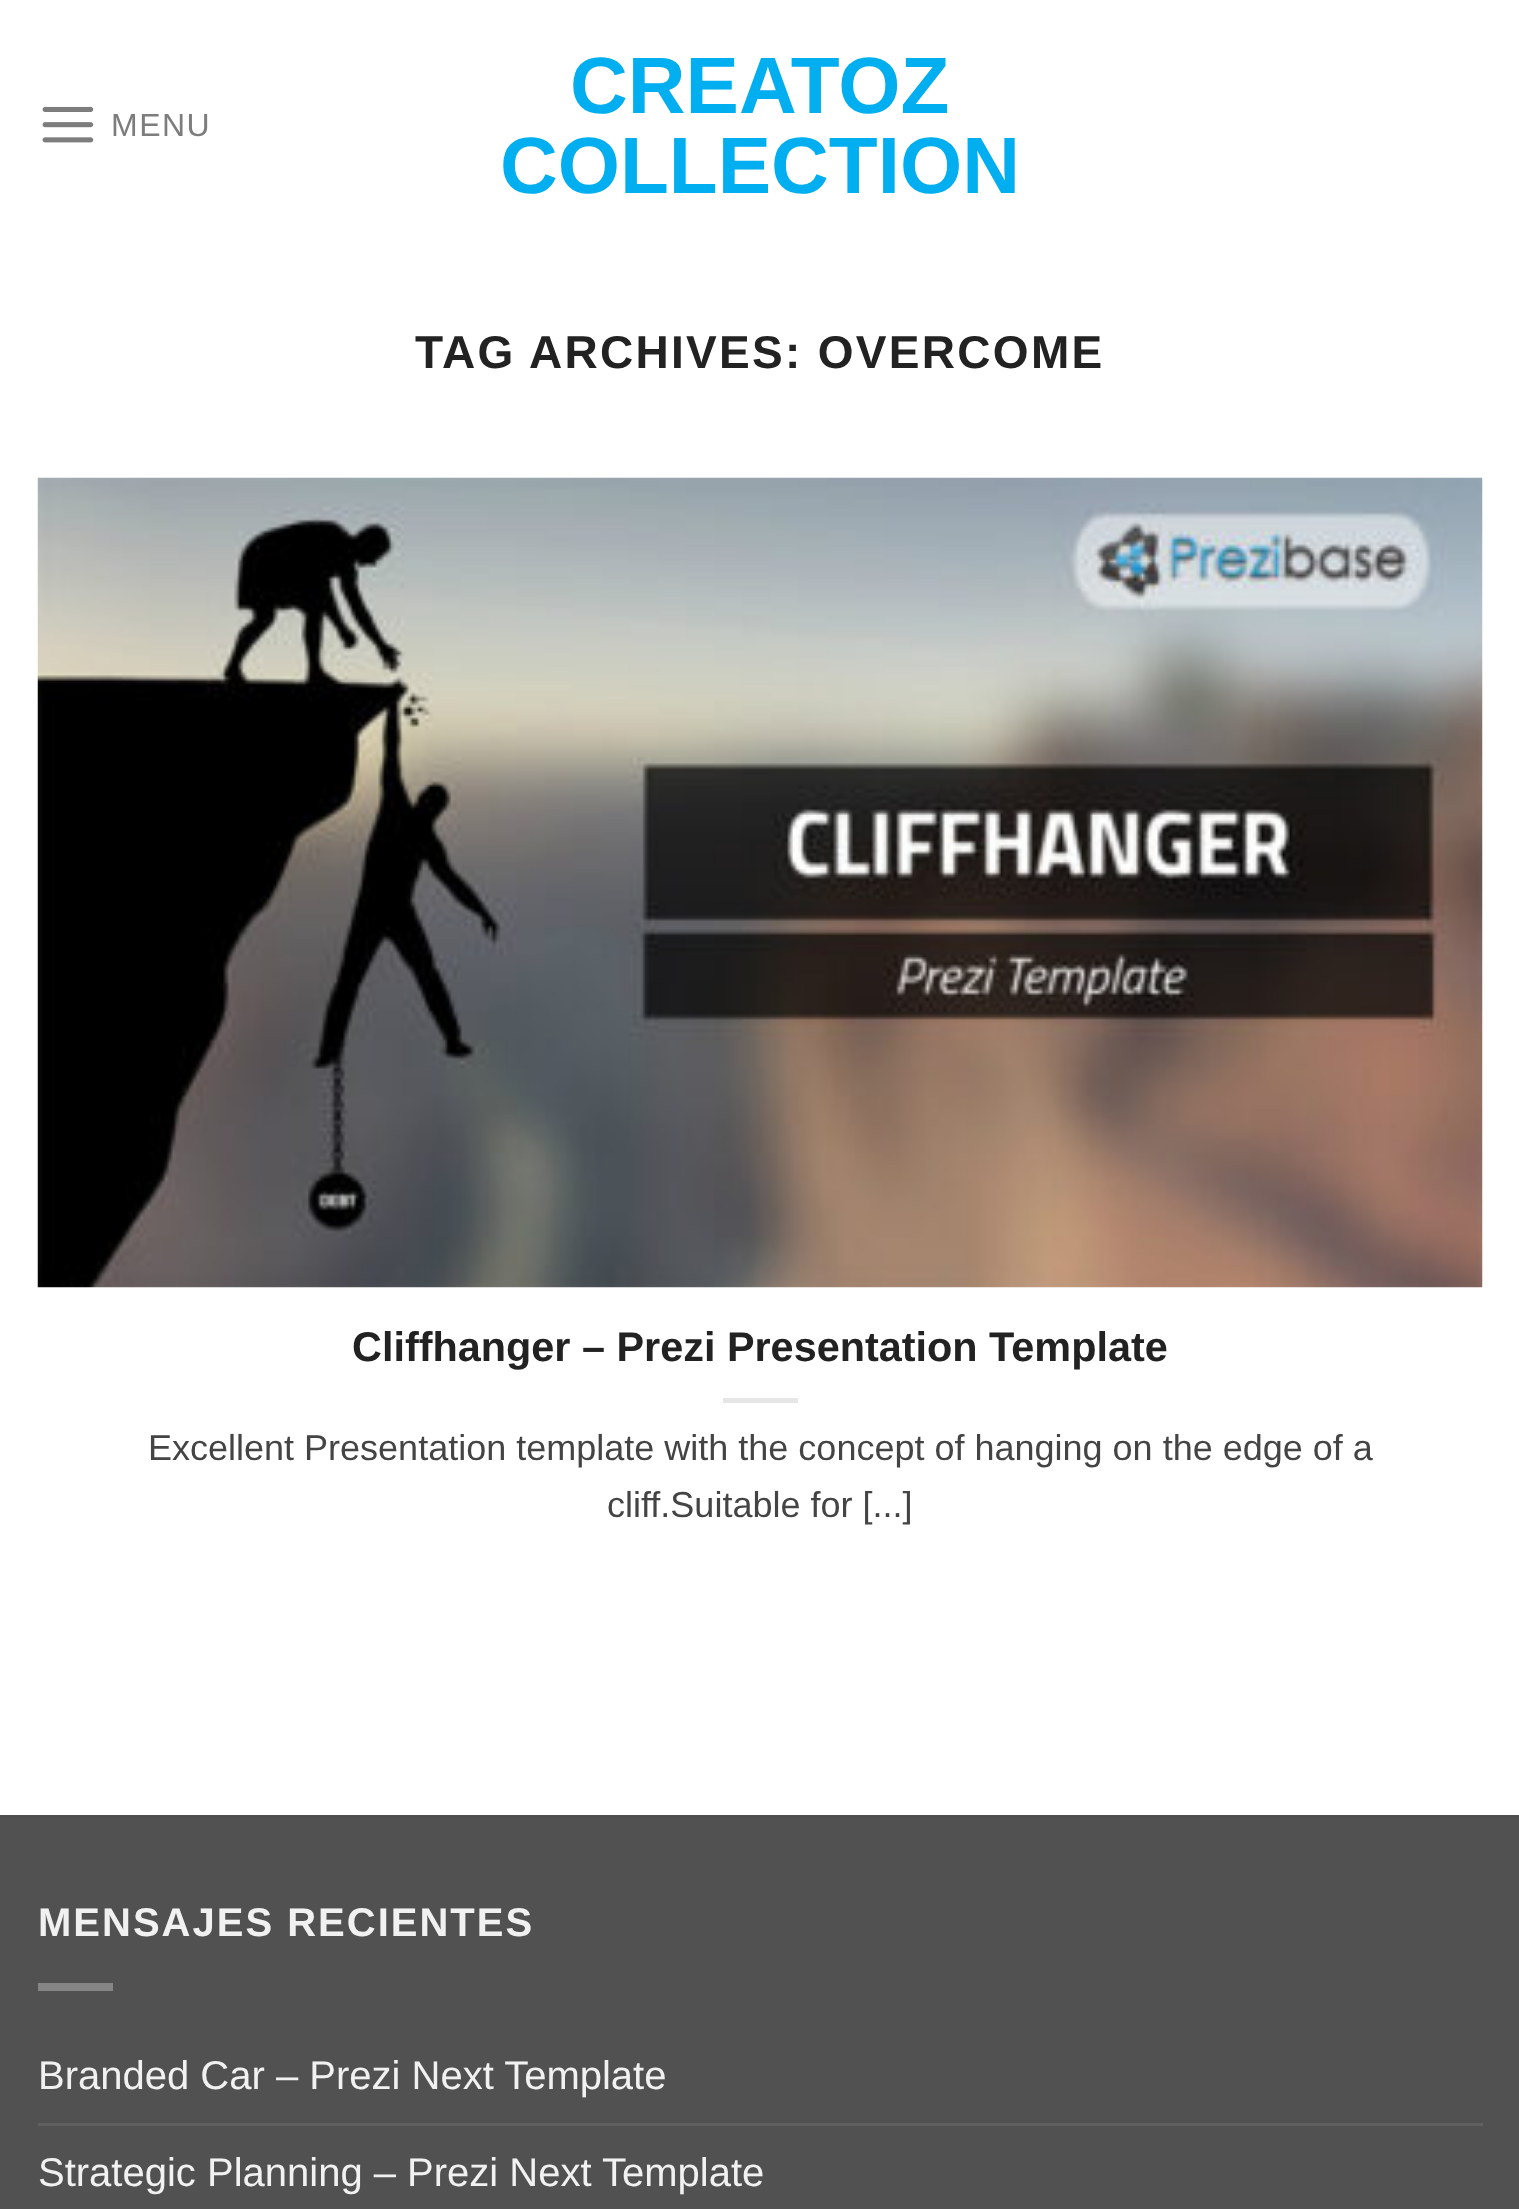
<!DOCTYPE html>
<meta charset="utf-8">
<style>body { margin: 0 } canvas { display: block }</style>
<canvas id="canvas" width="1519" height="2209"></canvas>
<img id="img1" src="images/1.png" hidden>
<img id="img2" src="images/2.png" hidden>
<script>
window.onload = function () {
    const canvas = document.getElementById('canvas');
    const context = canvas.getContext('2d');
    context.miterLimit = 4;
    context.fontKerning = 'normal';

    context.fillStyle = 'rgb(255, 255, 255)';
    context.fillRect(0, 0, 1519, 2209);
    context.drawImage(document.getElementById('img1'), 42, 106, 52, 37);
    context.drawImage(document.getElementById('img2'), 37, 477, 1446, 811);
    context.fillStyle = 'rgb(230, 230, 230)';
    context.fillRect(723, 1398, 75, 5);
    context.fillStyle = 'rgb(81, 81, 81)';
    context.fillRect(0, 1818, 1519, 391);
    context.fillStyle = 'rgb(77, 77, 77)';
    context.fillRect(0, 1815, 1519, 3);
    context.fillStyle = 'rgb(133, 133, 133)';
    context.fillRect(38, 1983, 75, 8);
    context.fillStyle = 'rgb(95, 95, 95)';
    context.fillRect(38, 2123, 1445, 3);
    context.letterSpacing = '1.5px';
    context.font = '32px Liberation Sans';
    context.fillStyle = 'rgb(125, 125, 125)';
    context.fillText('MENU', 111, 136);
    context.letterSpacing = '0px';
    context.font = 'bold 80px Liberation Sans';
    context.fillStyle = 'rgb(1, 174, 239)';
    context.fillText('CREATOZ', 570, 113);
    context.fillText('COLLECTION', 500, 193);
    context.letterSpacing = '2.3px';
    context.font = 'bold 46px Liberation Sans';
    context.fillStyle = 'rgb(34, 34, 34)';
    context.fillText('TAG ARCHIVES: OVERCOME', 415, 368);
    context.letterSpacing = '0px';
    context.font = 'bold 41.4px Liberation Sans';
    context.fillText('Cliffhanger – Prezi Presentation Template', 352, 1361);
    context.font = '36px Liberation Sans';
    context.fillStyle = 'rgb(68, 68, 68)';
    context.fillText('Excellent Presentation template with the concept of hanging on the edge of a', 148, 1460);
    context.fillText('cliff.Suitable for [...]', 607, 1517);
    context.letterSpacing = '2px';
    context.font = 'bold 40px Liberation Sans';
    context.fillStyle = 'rgb(241, 241, 241)';
    context.fillText('MENSAJES RECIENTES', 38, 1936);
    context.letterSpacing = '0px';
    context.font = '40px Liberation Sans';
    context.fillText('Branded Car – Prezi Next Template', 38, 2089);
    context.fillText('Strategic Planning – Prezi Next Template', 38, 2186);
};
</script>
